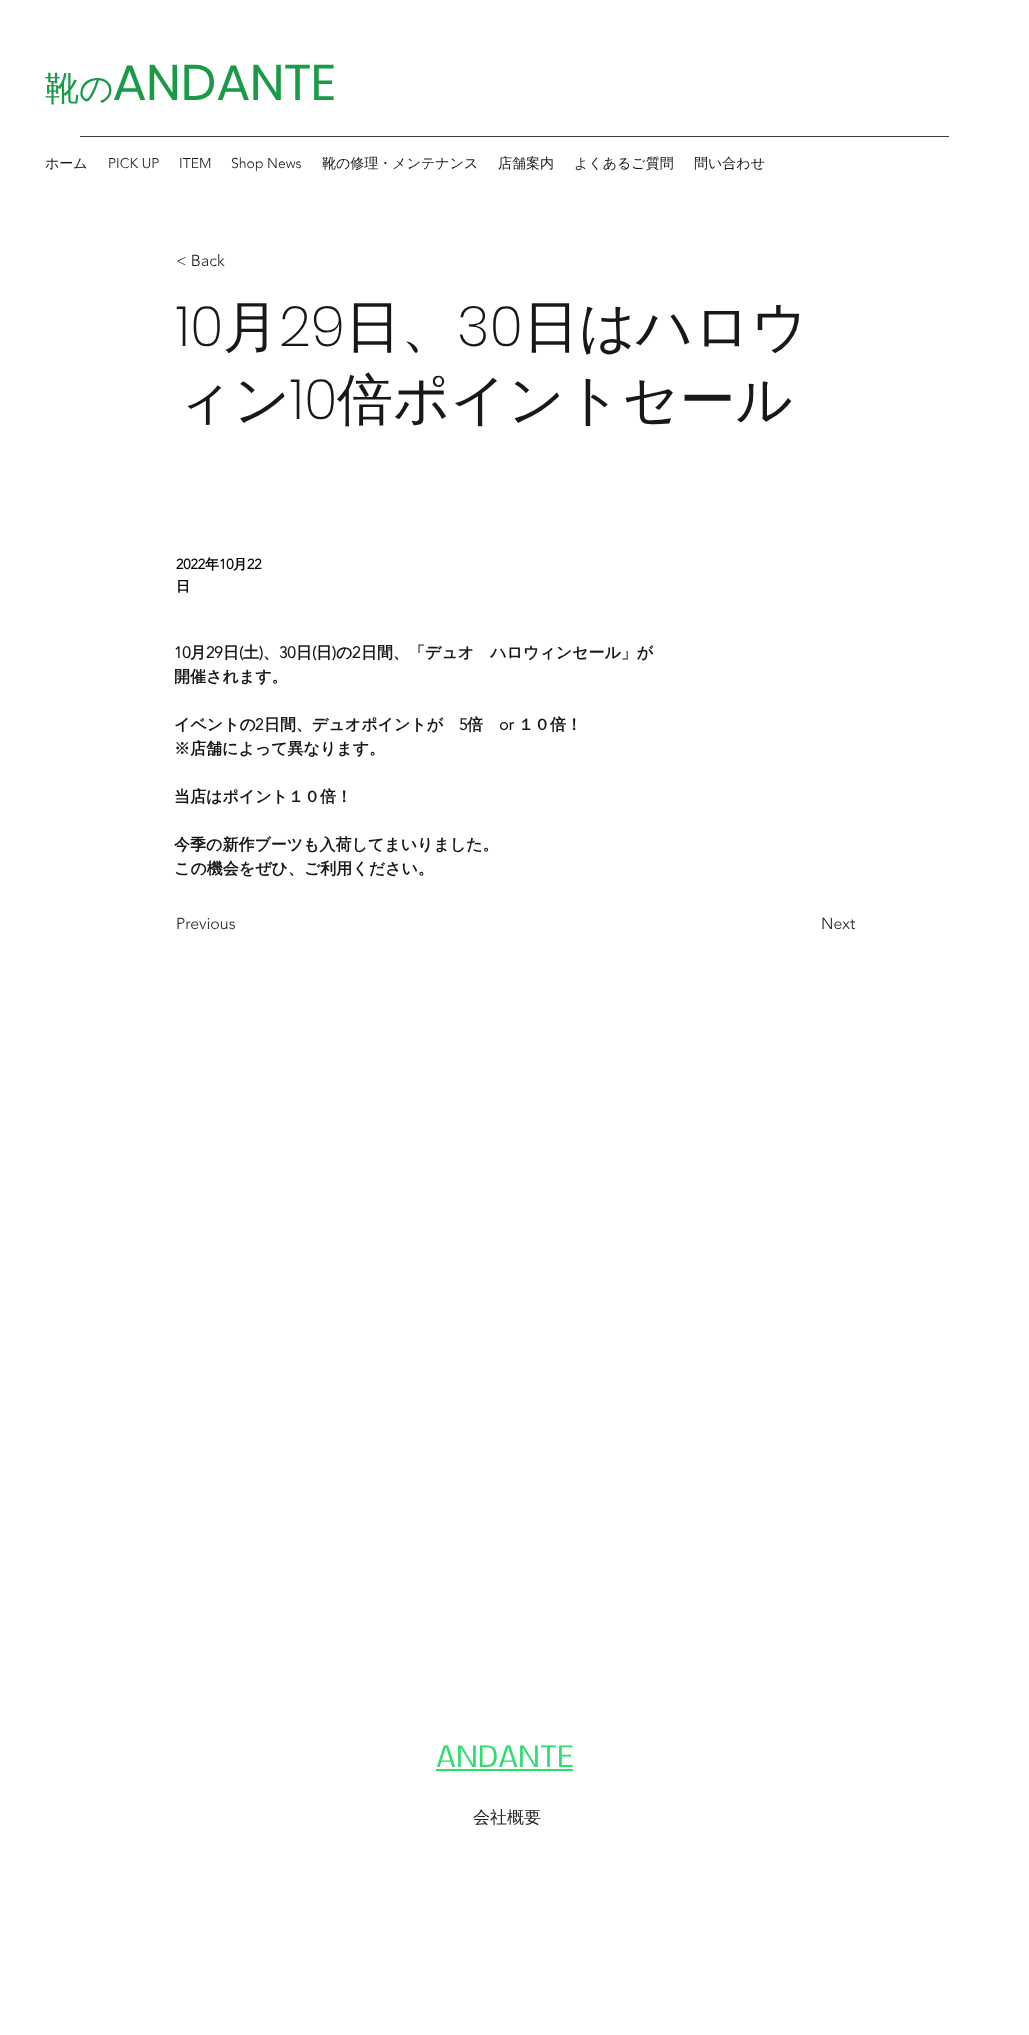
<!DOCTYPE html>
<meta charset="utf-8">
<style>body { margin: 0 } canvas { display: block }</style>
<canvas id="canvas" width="1029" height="2035"></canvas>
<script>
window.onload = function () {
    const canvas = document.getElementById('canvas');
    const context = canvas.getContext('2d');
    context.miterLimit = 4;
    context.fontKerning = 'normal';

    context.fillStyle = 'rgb(255, 255, 255)';
    context.fillRect(0, 0, 1029, 2035);
    context.fillStyle = 'rgb(59, 59, 59)';
    context.fillRect(80, 136, 869, 1);
    context.fillStyle = 'rgb(46, 222, 108)';
    context.fillRect(436, 1769, 137, 2);
    context.font = '500 34px WenQuanYi Zen Hei';
    context.fillStyle = 'rgb(24, 154, 70)';
    context.fillText('靴の', 45, 100);
    context.font = '50px Poppins';
    context.fillText('ANDANTE', 113, 100);
    context.font = '500 14px WenQuanYi Zen Hei';
    context.fillStyle = 'rgb(24, 24, 24)';
    context.fillText('ホーム', 45, 168);
    context.font = '300 14px "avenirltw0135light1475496"';
    context.fillText('PICK UP', 108, 168);
    context.fillText('ITEM', 179, 168);
    context.fillText('Shop News', 231, 168);
    context.font = '500 14px WenQuanYi Zen Hei';
    context.fillText('靴の修理・メンテナンス', 322, 168);
    context.fillText('店舗案内', 498, 168);
    context.fillText('よくあるご質問', 574, 168);
    context.fillText('問い合わせ', 694, 168);
    context.font = '300 16px "avenirltw0135light1475496"';
    context.fillText('< Back', 176, 266);
    context.font = '200 56px Poppins';
    context.fillText('10', 176, 346);
    context.font = '500 56px WenQuanYi Zen Hei';
    context.fillText('月', 223, 346);
    context.font = '200 56px Poppins';
    context.fillText('29', 279, 346);
    context.font = '500 56px WenQuanYi Zen Hei';
    context.fillText('日、', 345, 346);
    context.font = '200 56px Poppins';
    context.fillText('30', 457, 346);
    context.font = '500 56px WenQuanYi Zen Hei';
    context.fillText('日はハロウ', 523, 346);
    context.fillText('ィン', 176, 419);
    context.font = '200 56px Poppins';
    context.fillText('10', 290, 419);
    context.font = '500 56px WenQuanYi Zen Hei';
    context.fillText('倍ポイントセール', 337, 419);
    context.font = 'bold 14px "avenirltw0135light1475496"';
    context.fillStyle = 'rgb(0, 0, 0)';
    context.fillText('2022', 176, 569);
    context.font = 'bold 14px WenQuanYi Zen Hei';
    context.fillText('年', 205, 569);
    context.font = 'bold 14px "avenirltw0135light1475496"';
    context.fillText('10', 219, 569);
    context.font = 'bold 14px WenQuanYi Zen Hei';
    context.fillText('月', 233, 569);
    context.font = 'bold 14px "avenirltw0135light1475496"';
    context.fillText('22', 247, 569);
    context.font = 'bold 14px WenQuanYi Zen Hei';
    context.fillText('日', 176, 591);
    context.font = 'bold 16px "avenirltw0135light1475496"';
    context.fillStyle = 'rgb(24, 24, 24)';
    context.fillText('10', 174, 658);
    context.font = 'bold 16px WenQuanYi Zen Hei';
    context.fillText('月', 190, 658);
    context.font = 'bold 16px "avenirltw0135light1475496"';
    context.fillText('29', 206, 658);
    context.font = 'bold 16px WenQuanYi Zen Hei';
    context.fillText('日', 223, 658);
    context.font = 'bold 16px "avenirltw0135light1475496"';
    context.fillText('(', 239, 658);
    context.font = 'bold 16px WenQuanYi Zen Hei';
    context.fillText('土', 243, 658);
    context.font = 'bold 16px "avenirltw0135light1475496"';
    context.fillText(')', 259, 658);
    context.font = 'bold 16px WenQuanYi Zen Hei';
    context.fillText('、', 263, 658);
    context.font = 'bold 16px "avenirltw0135light1475496"';
    context.fillText('30', 279, 658);
    context.font = 'bold 16px WenQuanYi Zen Hei';
    context.fillText('日', 296, 658);
    context.font = 'bold 16px "avenirltw0135light1475496"';
    context.fillText('(', 312, 658);
    context.font = 'bold 16px WenQuanYi Zen Hei';
    context.fillText('日', 316, 658);
    context.font = 'bold 16px "avenirltw0135light1475496"';
    context.fillText(')', 332, 658);
    context.font = 'bold 16px WenQuanYi Zen Hei';
    context.fillText('の', 336, 658);
    context.font = 'bold 16px "avenirltw0135light1475496"';
    context.fillText('2', 352, 658);
    context.font = 'bold 16px WenQuanYi Zen Hei';
    context.fillText('日間、「デュオ　ハロウィンセール」が', 361, 658);
    context.fillText('開催されます。', 174, 682);
    context.fillText('イベントの', 174, 730);
    context.font = 'bold 16px "avenirltw0135light1475496"';
    context.fillText('2', 255, 730);
    context.font = 'bold 16px WenQuanYi Zen Hei';
    context.fillText('日間、デュオポイントが', 264, 730);
    context.font = 'bold 16px "avenirltw0135light1475496"';
    context.fillText('5', 459, 730);
    context.font = 'bold 16px WenQuanYi Zen Hei';
    context.fillText('倍', 467, 730);
    context.font = 'bold 16px "avenirltw0135light1475496"';
    context.fillText('or', 499, 730);
    context.font = 'bold 16px WenQuanYi Zen Hei';
    context.fillText('１０倍！', 518, 730);
    context.fillText('※店舗によって異なります。', 174, 754);
    context.fillText('当店はポイント１０倍！', 174, 802);
    context.fillText('今季の新作ブーツも入荷してまいりました。', 174, 850);
    context.fillText('この機会をぜひ、ご利用ください。', 174, 874);
    context.font = '300 16px "avenirltw0135light1475496"';
    context.fillText('Previous', 176, 929);
    context.fillText('Next', 821, 929);
    context.font = '28px Nobile';
    context.fillStyle = 'rgb(46, 222, 108)';
    context.fillText('ANDANTE', 436, 1767);
    context.font = '500 17px WenQuanYi Zen Hei';
    context.fillStyle = 'rgb(40, 38, 38)';
    context.fillText('会社概要', 473, 1823);
};
</script>
